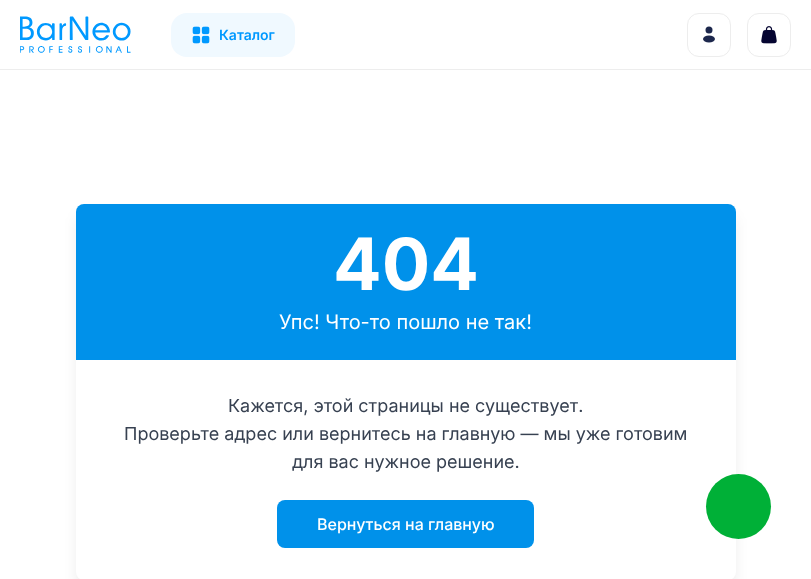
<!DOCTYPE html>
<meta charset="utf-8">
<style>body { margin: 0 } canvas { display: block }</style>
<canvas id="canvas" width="811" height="579"></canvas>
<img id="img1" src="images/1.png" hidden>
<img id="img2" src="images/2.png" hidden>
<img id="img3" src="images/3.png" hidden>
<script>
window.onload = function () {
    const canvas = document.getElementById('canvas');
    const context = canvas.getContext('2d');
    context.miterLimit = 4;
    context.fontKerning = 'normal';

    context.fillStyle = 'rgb(255, 255, 255)';
    context.fillRect(0, 0, 811, 579);
    context.fillStyle = 'rgb(237, 237, 237)';
    context.fillRect(0, 69, 811, 1);
    context.drawImage(document.getElementById('img1'), 20, 16, 111, 37);
    context.fillStyle = 'rgb(240, 249, 255)';
    context.beginPath();
    context.roundRect(171, 13, 124, 44, 16);
    context.fill();
    context.drawImage(document.getElementById('img2'), 192, 26, 18, 18);
    context.beginPath();
    context.roundRect(687.5, 13.5, 43, 43, 11.5);
    context.strokeStyle = 'rgb(237, 237, 237)';
    context.stroke();
    context.fillStyle = 'rgb(28, 39, 76)';
    context.beginPath();
    context.arc(709, 30, 3.5, 0, 2 * Math.PI);
    context.fill();
    context.beginPath();
    context.ellipse(709, 39, 6, 3.5, 0, 0, 2 * Math.PI);
    context.fill();
    context.beginPath();
    context.roundRect(747.5, 13.5, 43, 43, 11.5);
    context.stroke();
    context.drawImage(document.getElementById('img3'), 761, 26, 16, 18);
    context.fillStyle = 'rgba(0, 0, 0, 0.1)';
    context.filter = 'blur(7.5px)';
    context.beginPath();
    context.roundRect(79, 217, 654, 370, 5);
    context.fill();
    context.filter = 'none';
    context.fillStyle = 'rgb(255, 255, 255)';
    context.beginPath();
    context.roundRect(76, 204, 660, 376, 8);
    context.fill();
    context.fillStyle = 'rgb(0, 145, 234)';
    context.beginPath();
    context.roundRect(76, 204, 660, 156, [8, 8, 0, 0]);
    context.fill();
    context.beginPath();
    context.roundRect(277, 500, 257, 48, 8);
    context.fill();
    context.fillStyle = 'rgb(0, 176, 55)';
    context.beginPath();
    context.arc(738.5, 506.5, 32.5, 0, 2 * Math.PI);
    context.fill();
    context.font = '600 14px Inter';
    context.fillStyle = 'rgb(0, 153, 255)';
    context.fillText('Каталог', 219, 40);
    context.font = 'bold 72px Inter';
    context.fillStyle = 'rgb(255, 255, 255)';
    context.fillText('404', 333, 290);
    context.font = '20px Inter';
    context.fillText('Упс! Что-то пошло не так!', 279, 329);
    context.font = '18px Inter';
    context.fillStyle = 'rgb(55, 65, 81)';
    context.fillText('Кажется, этой страницы не существует.', 228, 412);
    context.fillText('Проверьте адрес или вернитесь на главную — мы уже готовим', 124, 440);
    context.fillText('для вас нужное решение.', 292, 468);
    context.font = '500 16px Inter';
    context.fillStyle = 'rgb(255, 255, 255)';
    context.fillText('Вернуться на главную', 317, 530);
};
</script>
